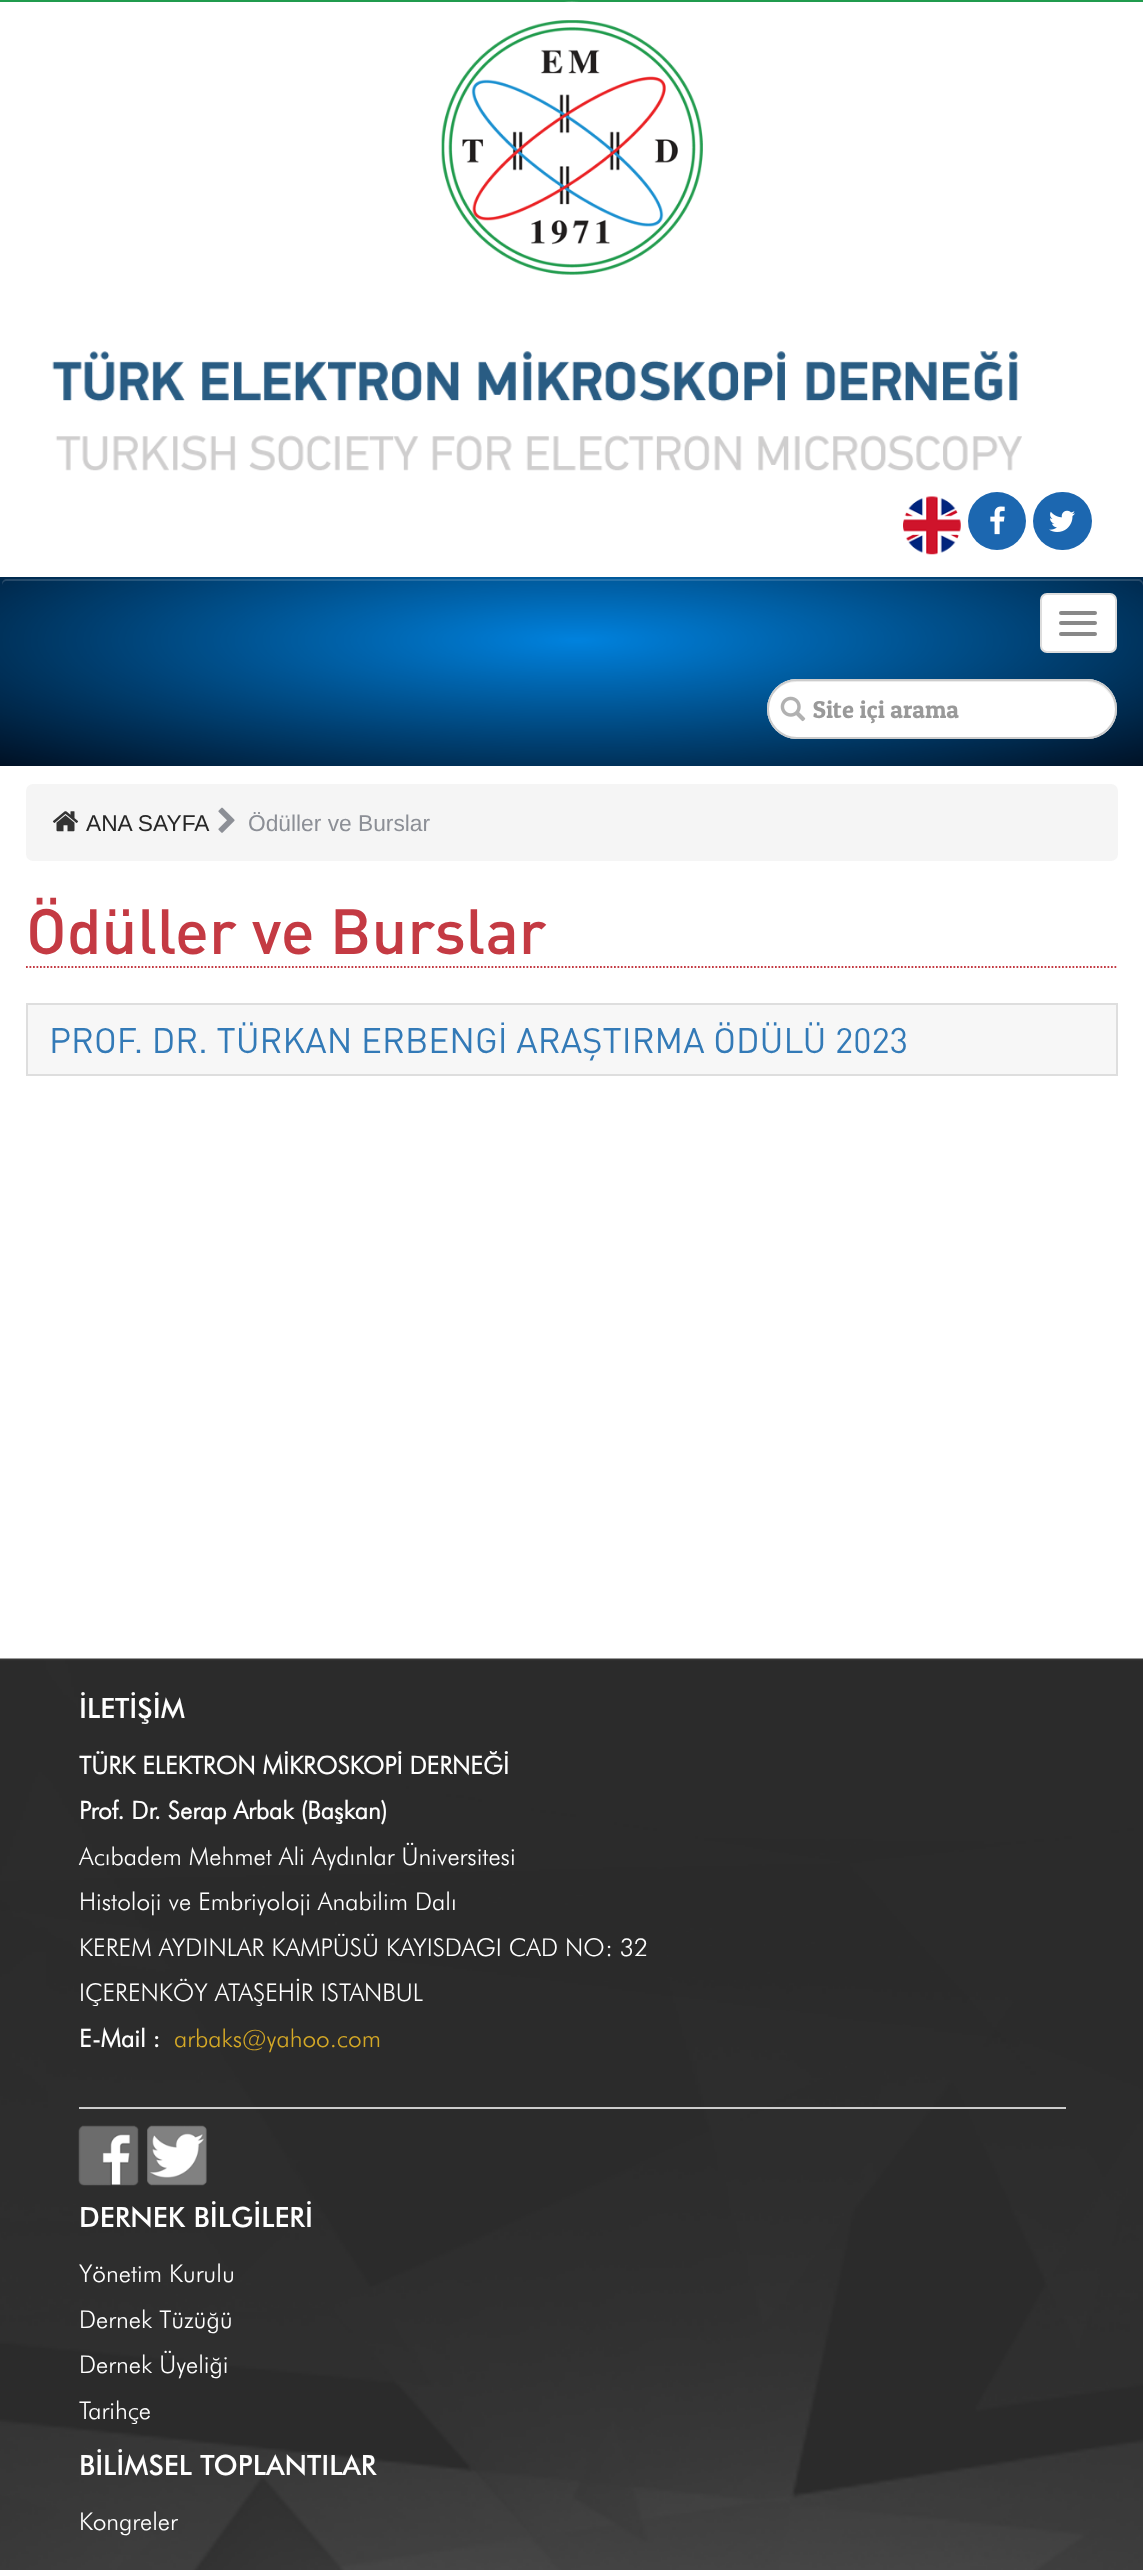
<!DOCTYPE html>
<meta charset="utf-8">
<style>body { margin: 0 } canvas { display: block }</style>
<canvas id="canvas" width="1143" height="2570"></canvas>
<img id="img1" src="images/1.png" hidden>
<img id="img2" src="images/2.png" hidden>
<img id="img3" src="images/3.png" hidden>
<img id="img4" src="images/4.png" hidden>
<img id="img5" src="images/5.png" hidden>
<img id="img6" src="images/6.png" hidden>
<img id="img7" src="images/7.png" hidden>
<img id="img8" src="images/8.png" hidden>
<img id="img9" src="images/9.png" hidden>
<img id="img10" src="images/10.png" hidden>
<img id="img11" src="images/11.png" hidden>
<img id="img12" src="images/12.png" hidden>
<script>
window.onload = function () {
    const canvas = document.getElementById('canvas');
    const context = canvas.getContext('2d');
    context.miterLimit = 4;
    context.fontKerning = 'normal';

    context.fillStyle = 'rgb(255, 255, 255)';
    context.fillRect(0, 0, 1143, 2570);
    context.fillStyle = 'rgb(32, 155, 77)';
    context.fillRect(0, 0, 1143, 2);
    context.drawImage(document.getElementById('img1'), 441, 1, 262, 274);
    context.drawImage(document.getElementById('img2'), 52, 351, 970, 120);
    context.drawImage(document.getElementById('img3'), 903, 496, 58, 59);
    context.fillStyle = 'rgb(28, 103, 176)';
    context.beginPath();
    context.arc(997, 521, 29, 0, 2 * Math.PI);
    context.fill();
    context.drawImage(document.getElementById('img4'), 990, 506, 15, 29);
    context.beginPath();
    context.roundRect(1033, 492, 59, 58, 29);
    context.fill();
    context.drawImage(document.getElementById('img5'), 1049, 510, 26, 22);
    context.drawImage(document.getElementById('img6'), 0, 577, 1143, 189);
    context.fillStyle = 'rgba(255, 255, 255, 0.15)';
    context.beginPath();
    context.moveTo(7, 581);
    context.lineTo(1138, 581);
    context.bezierCurveTo(1140, 581, 1143, 583, 1143, 586);
    context.lineTo(1143, 584);
    context.bezierCurveTo(1143, 581, 1141, 579, 1138, 579);
    context.lineTo(7, 579);
    context.bezierCurveTo(4, 579, 2, 581, 2, 584);
    context.lineTo(2, 586);
    context.bezierCurveTo(2, 583, 4, 581, 7, 581);
    context.closePath();
    context.fill();
    context.fillStyle = 'rgb(255, 255, 255)';
    context.beginPath();
    context.roundRect(1041, 594, 75, 58, 6);
    context.fill();
    context.strokeStyle = 'rgb(221, 221, 221)';
    context.lineWidth = 2;
    context.stroke();
    context.fillStyle = 'rgb(136, 136, 136)';
    context.beginPath();
    context.roundRect(1059, 611, 38, 4, 2);
    context.fill();
    context.beginPath();
    context.roundRect(1059, 621, 38, 4, 2);
    context.fill();
    context.beginPath();
    context.roundRect(1059, 632, 38, 4, 2);
    context.fill();
    context.fillStyle = 'rgb(255, 255, 255)';
    context.beginPath();
    context.roundRect(767, 679, 350, 60, 30);
    context.fill();
    context.fillStyle = 'rgb(236, 236, 236)';
    context.beginPath();
    context.moveTo(796, 682);
    context.lineTo(1087, 682);
    context.bezierCurveTo(1102, 682, 1115, 695, 1115, 710);
    context.lineTo(1115, 709);
    context.bezierCurveTo(1115, 694, 1102, 681, 1087, 681);
    context.lineTo(796, 681);
    context.bezierCurveTo(781, 681, 768, 694, 768, 709);
    context.lineTo(768, 710);
    context.bezierCurveTo(768, 695, 781, 682, 796, 682);
    context.closePath();
    context.fill();
    context.beginPath();
    context.roundRect(768, 680, 348, 58, 29);
    context.strokeStyle = 'rgb(204, 204, 204)';
    context.stroke();
    context.drawImage(document.getElementById('img7'), 780, 696, 26, 26);
    context.fillStyle = 'rgb(245, 245, 245)';
    context.beginPath();
    context.roundRect(26, 784, 1092, 77, 7);
    context.fill();
    context.drawImage(document.getElementById('img8'), 52, 811, 27, 21);
    context.drawImage(document.getElementById('img9'), 218, 807, 17, 26);
    context.beginPath();
    context.moveTo(26, 967);
    context.lineTo(1118, 967);
    context.strokeStyle = 'rgb(196, 58, 67)';
    context.lineWidth = 1.8;
    context.setLineDash([1.75, 1.75]);
    context.stroke();
    context.fillStyle = 'rgb(247, 247, 247)';
    context.beginPath();
    context.rect(27, 1004, 1090, 71);
    context.fill();
    context.strokeStyle = 'rgb(222, 222, 222)';
    context.lineWidth = 2;
    context.setLineDash([]);
    context.stroke();
    context.drawImage(document.getElementById('img10'), 0, 1658, 1143, 912);
    context.fillStyle = 'rgb(204, 204, 204)';
    context.fillRect(79, 2107, 987, 2);
    context.drawImage(document.getElementById('img11'), 78, 2125, 61, 61);
    context.drawImage(document.getElementById('img12'), 147, 2125, 60, 61);
    context.font = '24.5px Patua One';
    context.fillStyle = 'rgb(153, 153, 153)';
    context.fillText('Site içi arama', 812, 718);
    context.font = '22.75px Liberation Sans';
    context.fillStyle = 'rgb(39, 39, 39)';
    context.fillText('ANA SAYFA', 86, 831);
    context.fillStyle = 'rgb(140, 143, 150)';
    context.fillText('Ödüller ve Burslar', 248, 831);
    context.font = '500 63px DIN';
    context.fillStyle = 'rgb(196, 58, 67)';
    context.fillText('Ödüller ve Burslar', 26, 954);
    context.font = '35px DIN';
    context.fillStyle = 'rgb(51, 122, 183)';
    context.fillText('PROF. DR. TÜRKAN ERBENGİ ARAŞTIRMA ÖDÜLÜ 2023', 49, 1053);
    context.font = '500 28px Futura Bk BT';
    context.fillStyle = 'rgb(255, 255, 255)';
    context.fillText('İLETİŞİM', 79, 1718);
    context.font = 'bold 24.5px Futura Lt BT';
    context.fillText('TÜRK ELEKTRON MİKROSKOPİ DERNEĞİ', 79, 1774);
    context.fillText('Prof. Dr. Serap Arbak (Başkan)', 79, 1819);
    context.font = '300 24.5px Futura Lt BT';
    context.fillText('Acıbadem Mehmet Ali Aydınlar Üniversitesi', 79, 1865);
    context.fillText('Histoloji ve Embriyoloji Anabilim Dalı', 79, 1910);
    context.fillText('KEREM AYDINLAR KAMPÜSÜ KAYISDAGI CAD NO: 32', 79, 1956);
    context.fillText('IÇERENKÖY ATAŞEHİR ISTANBUL', 79, 2001);
    context.font = 'bold 24.5px Futura Lt BT';
    context.fillText('E-Mail :', 79, 2047);
    context.font = '300 24.5px Futura Lt BT';
    context.fillStyle = 'rgb(212, 168, 38)';
    context.fillText('arbaks@yahoo.com', 174, 2047);
    context.font = '500 28px Futura Bk BT';
    context.fillStyle = 'rgb(255, 255, 255)';
    context.fillText('DERNEK BİLGİLERİ', 79, 2227);
    context.font = '300 24.5px Futura Lt BT';
    context.fillText('Yönetim Kurulu', 79, 2282);
    context.fillText('Dernek Tüzüğü', 79, 2328);
    context.fillText('Dernek Üyeliği', 79, 2373);
    context.fillText('Tarihçe', 79, 2419);
    context.font = '500 28px Futura Bk BT';
    context.fillText('BİLİMSEL TOPLANTILAR', 79, 2475);
    context.font = '300 24.5px Futura Lt BT';
    context.fillText('Kongreler', 79, 2530);
};
</script>
